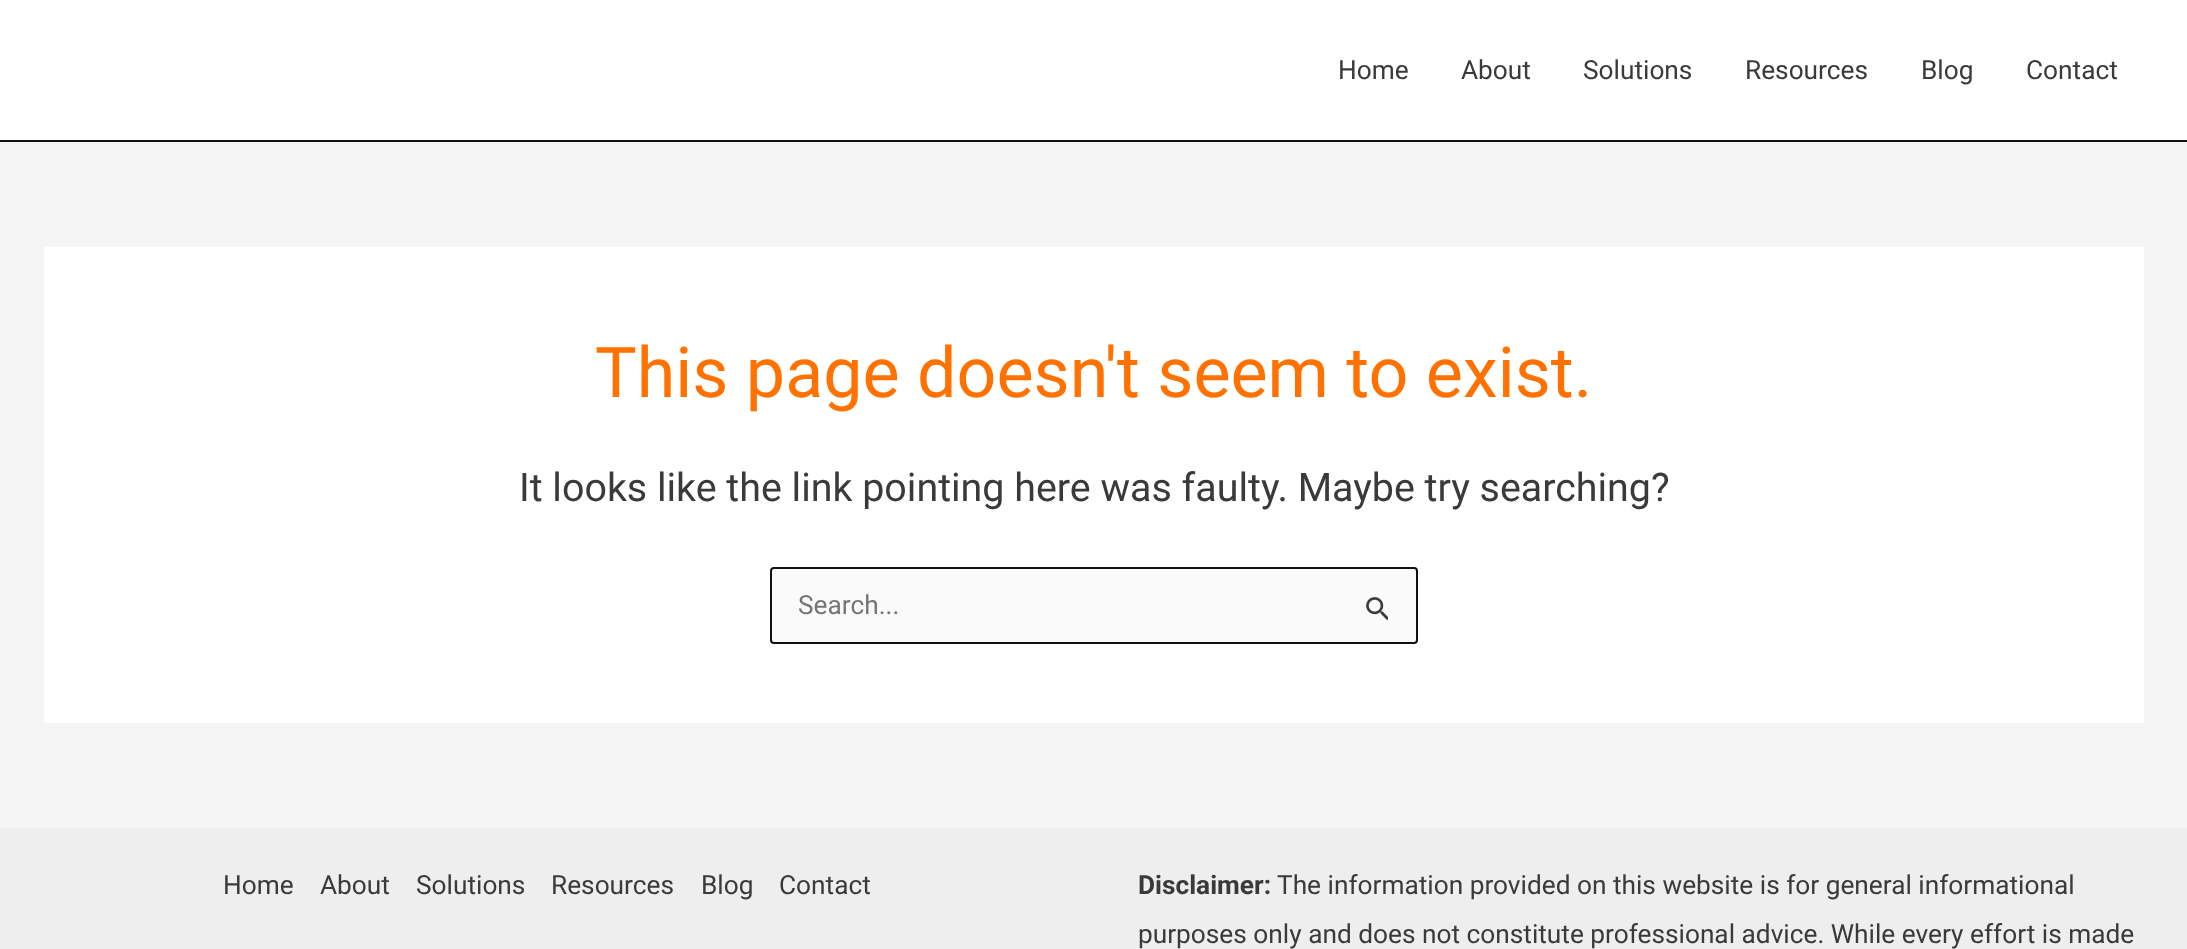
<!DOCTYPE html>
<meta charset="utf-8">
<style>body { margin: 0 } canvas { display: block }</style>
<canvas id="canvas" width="2187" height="949"></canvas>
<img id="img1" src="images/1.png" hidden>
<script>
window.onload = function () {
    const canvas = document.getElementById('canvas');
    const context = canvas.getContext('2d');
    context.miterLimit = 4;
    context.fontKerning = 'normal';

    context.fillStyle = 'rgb(245, 245, 245)';
    context.fillRect(0, 0, 2187, 949);
    context.fillStyle = 'rgb(255, 255, 255)';
    context.fillRect(0, 0, 2187, 140);
    context.fillStyle = 'rgb(17, 17, 17)';
    context.fillRect(0, 140, 2187, 2);
    context.fillStyle = 'rgb(255, 255, 255)';
    context.fillRect(44, 247, 2100, 476);
    context.fillStyle = 'rgb(250, 250, 250)';
    context.beginPath();
    context.roundRect(771, 568, 646, 75, 3);
    context.fill();
    context.strokeStyle = 'rgb(17, 17, 17)';
    context.lineWidth = 2;
    context.stroke();
    context.drawImage(document.getElementById('img1'), 1366, 597, 22, 23);
    context.fillStyle = 'rgb(238, 238, 238)';
    context.fillRect(0, 828, 2187, 121);
    context.font = '26.25px Roboto';
    context.fillStyle = 'rgb(58, 58, 58)';
    context.fillText('Home', 1338, 79);
    context.fillText('About', 1461, 79);
    context.fillText('Solutions', 1583, 79);
    context.fillText('Resources', 1745, 79);
    context.fillText('Blog', 1921, 79);
    context.fillText('Contact', 2026, 79);
    context.font = '70px Roboto';
    context.fillStyle = 'rgb(255, 113, 0)';
    context.fillText('This page doesn\'t seem to exist.', 595, 397);
    context.font = '39.4px Roboto';
    context.fillStyle = 'rgb(58, 58, 58)';
    context.fillText('It looks like the link pointing here was faulty. Maybe try searching?', 519, 501);
    context.font = '26.25px Roboto';
    context.fillStyle = 'rgb(117, 117, 117)';
    context.fillText('Search...', 798, 614);
    context.fillStyle = 'rgb(58, 58, 58)';
    context.fillText('Home', 223, 894);
    context.fillText('About', 320, 894);
    context.fillText('Solutions', 416, 894);
    context.fillText('Resources', 551, 894);
    context.fillText('Blog', 701, 894);
    context.fillText('Contact', 779, 894);
    context.font = 'bold 26.25px Roboto';
    context.fillText('Disclaimer:', 1138, 894);
    context.font = '26.25px Roboto';
    context.fillText('The information provided on this website is for general informational', 1277, 894);
    context.fillText('purposes only and does not constitute professional advice. While every effort is made', 1138, 943);
};
</script>
